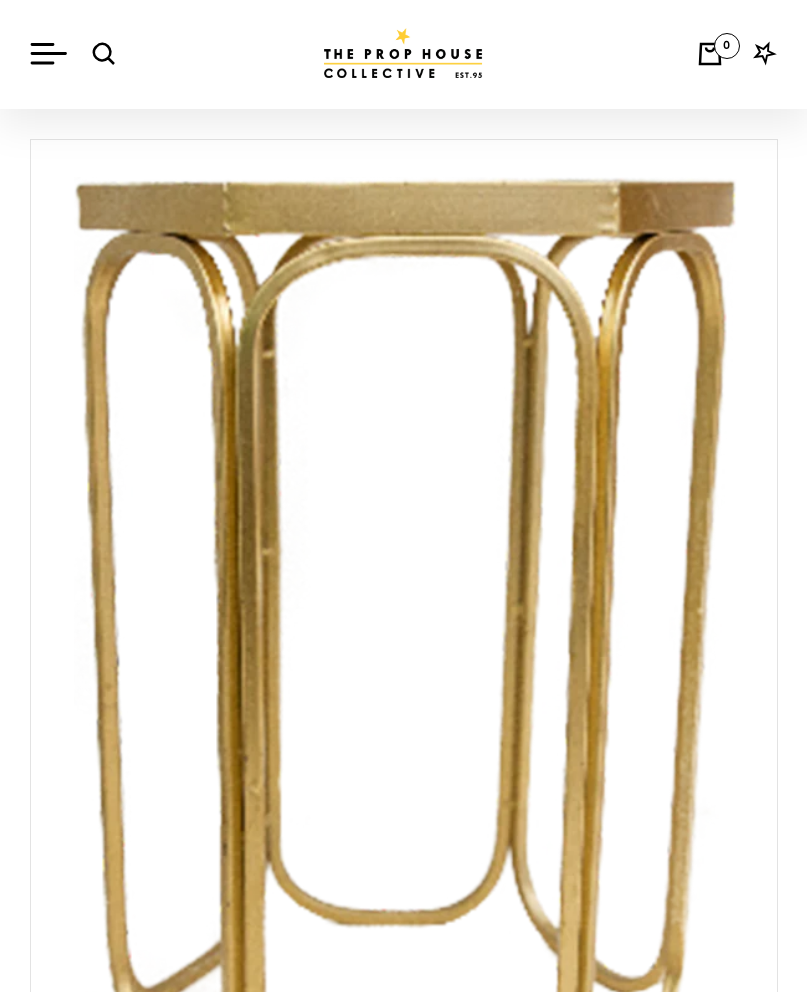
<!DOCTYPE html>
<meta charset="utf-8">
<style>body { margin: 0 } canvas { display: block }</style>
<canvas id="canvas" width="807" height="992"></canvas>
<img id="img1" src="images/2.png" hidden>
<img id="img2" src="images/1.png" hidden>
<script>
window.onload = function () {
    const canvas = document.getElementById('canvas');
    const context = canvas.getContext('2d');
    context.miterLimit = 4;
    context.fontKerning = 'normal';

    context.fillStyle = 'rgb(255, 255, 255)';
    context.fillRect(0, 0, 807, 992);
    context.strokeStyle = 'rgb(227, 227, 227)';
    context.strokeRect(30.5, 139.5, 747, 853);
    context.drawImage(document.getElementById('img1'), 74, 177, 663, 815);
    context.fillStyle = 'rgba(0, 0, 0, 0.08)';
    context.filter = 'blur(19px)';
    context.beginPath();
    context.rect(0, 15, 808, 109);
    context.fill();
    context.filter = 'none';
    context.fillStyle = 'rgb(255, 255, 255)';
    context.fillRect(0, 0, 807, 109);
    context.beginPath();
    context.moveTo(32, 44.5);
    context.lineTo(53, 44.5);
    context.moveTo(32, 63);
    context.lineTo(53, 63);
    context.moveTo(32, 53.5);
    context.lineTo(65.5, 53.5);
    context.strokeStyle = 'rgb(0, 0, 0)';
    context.lineWidth = 2.8;
    context.lineCap = 'round';
    context.lineJoin = 'round';
    context.stroke();
    context.beginPath();
    context.moveTo(108, 58);
    context.bezierCurveTo(115.5, 50, 104, 38.5, 96.5, 46.5);
    context.bezierCurveTo(88.5, 54, 100, 65.5, 108, 58);
    context.closePath();
    context.moveTo(108, 58);
    context.lineTo(114, 64);
    context.lineWidth = 2.5;
    context.lineCap = 'butt';
    context.lineJoin = 'miter';
    context.stroke();
    context.drawImage(document.getElementById('img2'), 324, 28, 159, 50);
    context.beginPath();
    context.moveTo(701, 44);
    context.lineTo(719, 44);
    context.lineTo(720, 64);
    context.lineTo(700, 64);
    context.closePath();
    context.moveTo(706, 47.5);
    context.bezierCurveTo(706, 52.5, 714, 52.5, 714, 47.5);
    context.stroke();
    context.beginPath();
    context.arc(727, 46, 12.5, 0, 2 * Math.PI);
    context.fill();
    context.lineWidth = 1;
    context.stroke();
    context.beginPath();
    context.moveTo(760, 52);
    context.lineTo(757, 46);
    context.lineTo(763.5, 49);
    context.lineTo(768.5, 44);
    context.lineTo(768, 51);
    context.lineTo(774, 54);
    context.lineTo(767, 55.5);
    context.lineTo(765.5, 62.5);
    context.lineTo(762.5, 56);
    context.lineTo(755.5, 57);
    context.closePath();
    context.lineWidth = 1.9;
    context.stroke();
    context.font = '600 11px Poppins';
    context.fillStyle = 'rgb(0, 0, 0)';
    context.fillText('0', 723, 49);
};
</script>
